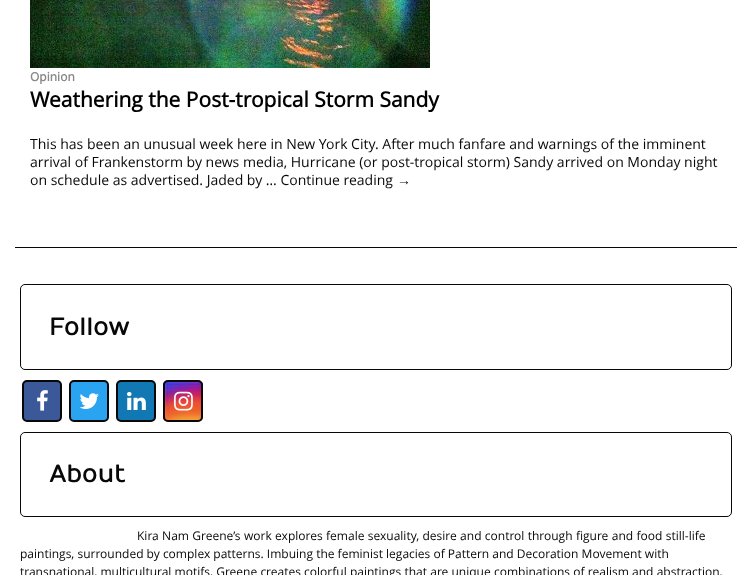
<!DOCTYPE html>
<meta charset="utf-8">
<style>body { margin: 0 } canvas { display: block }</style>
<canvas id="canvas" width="752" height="575"></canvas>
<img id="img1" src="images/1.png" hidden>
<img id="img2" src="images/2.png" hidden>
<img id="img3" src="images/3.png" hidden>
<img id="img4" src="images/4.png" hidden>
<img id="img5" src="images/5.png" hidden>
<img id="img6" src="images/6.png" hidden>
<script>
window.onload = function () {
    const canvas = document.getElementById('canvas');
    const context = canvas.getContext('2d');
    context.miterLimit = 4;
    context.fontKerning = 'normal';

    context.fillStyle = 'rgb(255, 255, 255)';
    context.fillRect(0, 0, 752, 575);
    context.fillStyle = 'rgb(8, 8, 8)';
    context.fillRect(15, 247, 722, 1);
    context.drawImage(document.getElementById('img1'), 30, 0, 400, 68);
    context.beginPath();
    context.roundRect(20.5, 284.5, 711, 85, 4.5);
    context.strokeStyle = 'rgb(8, 8, 8)';
    context.stroke();
    context.fillStyle = 'rgb(59, 89, 152)';
    context.beginPath();
    context.roundRect(23, 381, 38, 40, 4);
    context.fill();
    context.lineWidth = 2;
    context.stroke();
    context.drawImage(document.getElementById('img2'), 37, 390, 11, 21);
    context.fillStyle = 'rgb(42, 163, 240)';
    context.beginPath();
    context.roundRect(70, 381, 38, 40, 4);
    context.fill();
    context.stroke();
    context.drawImage(document.getElementById('img3'), 79, 393, 20, 16);
    context.fillStyle = 'rgb(17, 120, 179)';
    context.beginPath();
    context.roundRect(117, 381, 38, 40, 4);
    context.fill();
    context.stroke();
    context.drawImage(document.getElementById('img4'), 127, 392, 19, 18);
    context.drawImage(document.getElementById('img5'), 163, 380, 40, 42);
    context.beginPath();
    context.roundRect(164, 381, 38, 40, 4);
    context.stroke();
    context.drawImage(document.getElementById('img6'), 174, 391, 19, 20);
    context.beginPath();
    context.roundRect(20.5, 432.5, 711, 84, 4.5);
    context.lineWidth = 1;
    context.stroke();
    context.font = 'bold 12px Open Sans';
    context.fillStyle = 'rgb(136, 136, 136)';
    context.fillText('Opinion', 30, 81);
    context.font = 'bold 21px Open Sans';
    context.fillStyle = 'rgb(0, 0, 0)';
    context.fillText('Weathering the Post-tropical Storm Sandy', 30, 107);
    context.font = '14px Open Sans';
    context.fillStyle = 'rgb(8, 8, 8)';
    context.fillText('This has been an unusual week here in New York City. After much fanfare and warnings of the imminent', 30, 149);
    context.fillText('arrival of Frankenstorm by news media, Hurricane (or post-tropical storm) Sandy arrived on Monday night', 30, 167);
    context.fillText('on schedule as advertised. Jaded by … Continue reading', 30, 185);
    context.font = '14px Liberation Serif';
    context.fillText('→', 397, 185);
    context.font = 'bold 24px Numans';
    context.fillText('Follow', 49, 335);
    context.fillText('About', 49, 482);
    context.wordSpacing = '0.25px';
    context.font = '12px Open Sans';
    context.fillText('Kira Nam Greene’s work explores female sexuality, desire and control through figure and food still-life', 137, 540);
    context.wordSpacing = '0px';
    context.fillText('paintings, surrounded by complex patterns. Imbuing the feminist legacies of Pattern and Decoration Movement with', 20, 558);
    context.wordSpacing = '0.1px';
    context.fillText('transnational, multicultural motifs, Greene creates colorful paintings that are unique combinations of realism and abstraction,', 20, 576);
};
</script>
